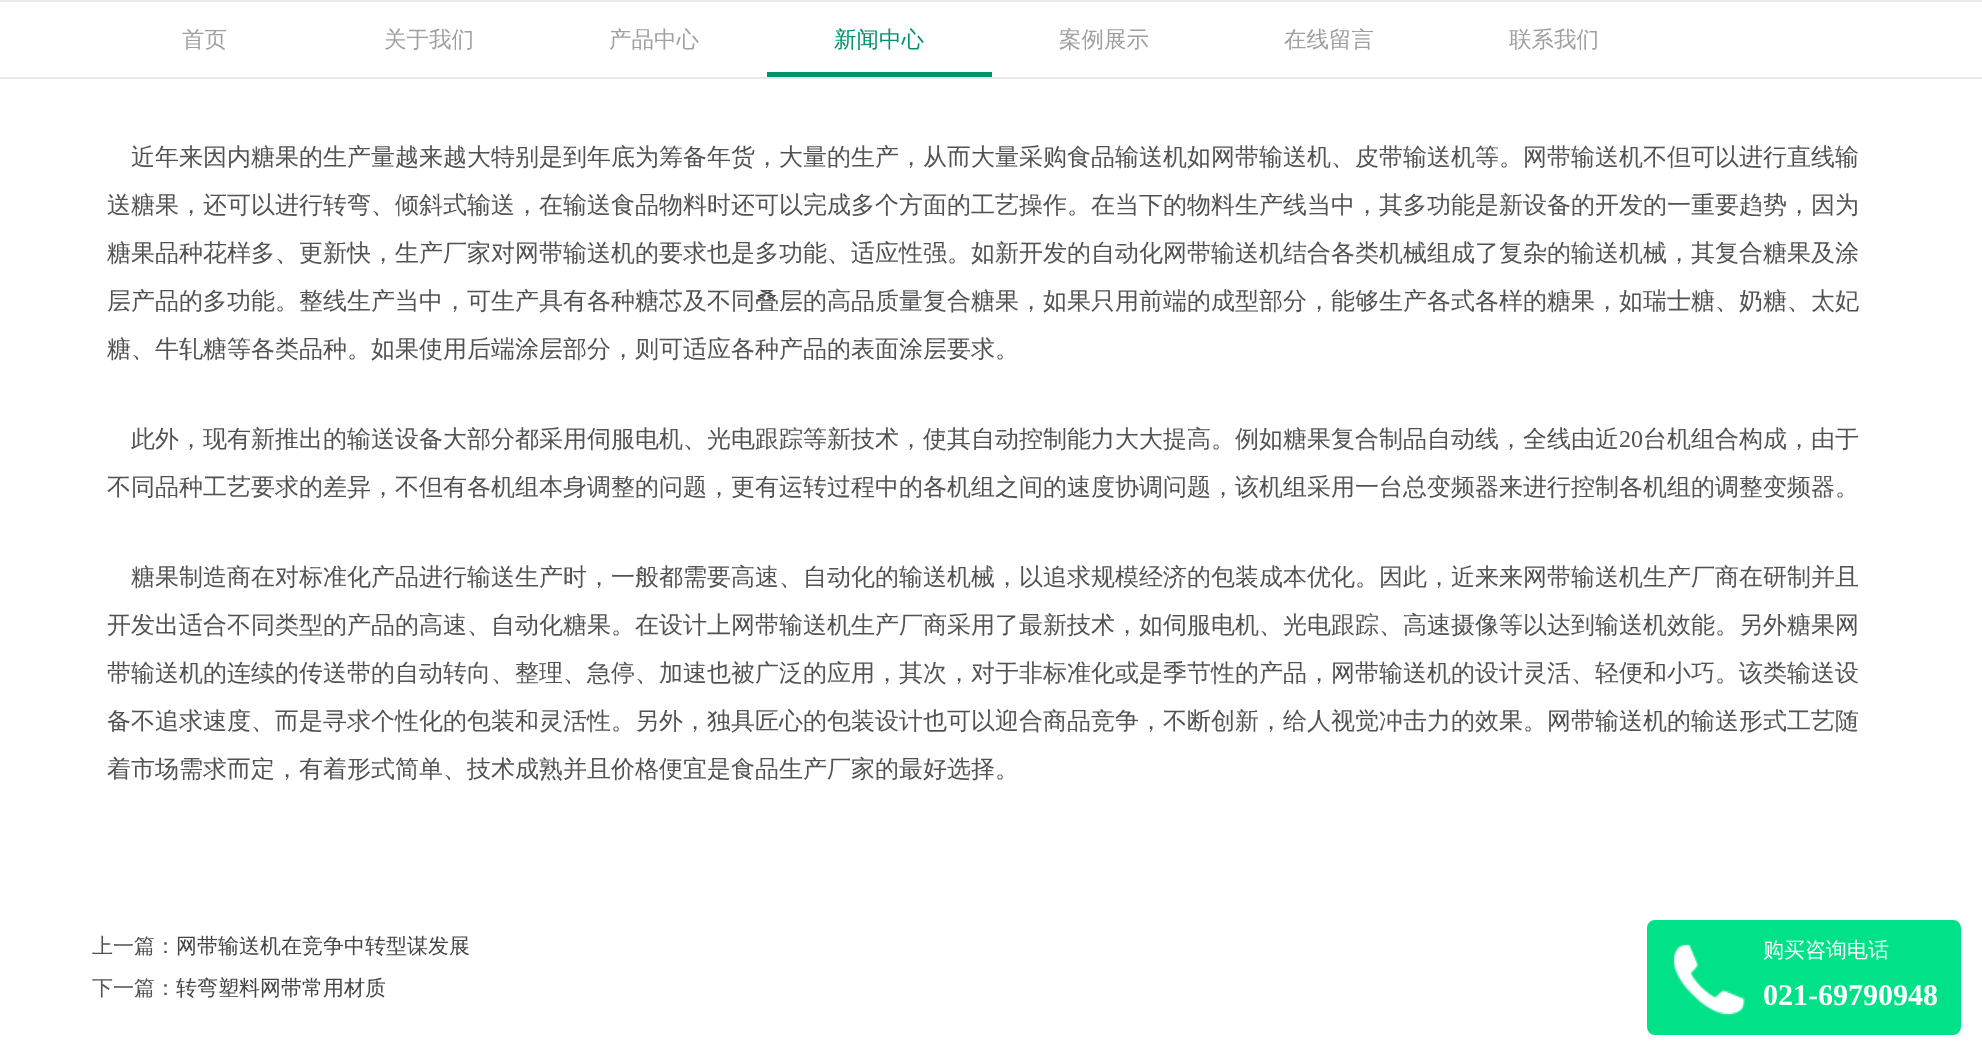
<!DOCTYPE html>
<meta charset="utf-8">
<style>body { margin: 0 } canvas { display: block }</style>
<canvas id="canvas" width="1982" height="1064"></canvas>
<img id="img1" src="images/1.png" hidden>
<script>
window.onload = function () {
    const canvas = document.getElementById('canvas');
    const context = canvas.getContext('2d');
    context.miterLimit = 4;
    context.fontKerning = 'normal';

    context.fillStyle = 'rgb(255, 255, 255)';
    context.fillRect(0, 0, 1982, 1064);
    context.fillStyle = 'rgb(233, 233, 233)';
    context.fillRect(0, 0, 1982, 2);
    context.fillRect(0, 77, 1982, 2);
    context.fillStyle = 'rgb(0, 146, 106)';
    context.fillRect(767, 72, 225, 5);
    context.fillStyle = 'rgb(1, 225, 136)';
    context.beginPath();
    context.roundRect(1648, 921, 312, 113, 7);
    context.fill();
    context.strokeStyle = 'rgb(1, 225, 136)';
    context.lineWidth = 2;
    context.stroke();
    context.drawImage(document.getElementById('img1'), 1673, 944, 72, 71);
    context.font = '500 22.5px WenQuanYi Zen Hei';
    context.fillStyle = 'rgb(160, 160, 160)';
    context.fillText('首页', 182, 47);
    context.fillText('关于我们', 384, 47);
    context.fillText('产品中心', 609, 47);
    context.fillStyle = 'rgb(0, 146, 106)';
    context.fillText('新闻中心', 834, 47);
    context.fillStyle = 'rgb(160, 160, 160)';
    context.fillText('案例展示', 1059, 47);
    context.fillText('在线留言', 1284, 47);
    context.fillText('联系我们', 1509, 47);
    context.font = '500 24px WenQuanYi Zen Hei';
    context.fillStyle = 'rgb(82, 82, 82)';
    context.fillText('近年来因内糖果的生产量越来越大特别是到年底为筹备年货，大量的生产，从而大量采购食品输送机如网带输送机、皮带输送机等。网带输送机不但可以进行直线输', 131, 165);
    context.fillText('送糖果，还可以进行转弯、倾斜式输送，在输送食品物料时还可以完成多个方面的工艺操作。在当下的物料生产线当中，其多功能是新设备的开发的一重要趋势，因为', 107, 213);
    context.fillText('糖果品种花样多、更新快，生产厂家对网带输送机的要求也是多功能、适应性强。如新开发的自动化网带输送机结合各类机械组成了复杂的输送机械，其复合糖果及涂', 107, 261);
    context.fillText('层产品的多功能。整线生产当中，可生产具有各种糖芯及不同叠层的高品质量复合糖果，如果只用前端的成型部分，能够生产各式各样的糖果，如瑞士糖、奶糖、太妃', 107, 309);
    context.fillText('糖、牛轧糖等各类品种。如果使用后端涂层部分，则可适应各种产品的表面涂层要求。', 107, 357);
    context.fillText('此外，现有新推出的输送设备大部分都采用伺服电机、光电跟踪等新技术，使其自动控制能力大大提高。例如糖果复合制品自动线，全线由近', 131, 447);
    context.font = '24px Liberation Serif';
    context.fillText('20', 1619, 447);
    context.font = '500 24px WenQuanYi Zen Hei';
    context.fillText('台机组合构成，由于', 1643, 447);
    context.fillText('不同品种工艺要求的差异，不但有各机组本身调整的问题，更有运转过程中的各机组之间的速度协调问题，该机组采用一台总变频器来进行控制各机组的调整变频器。', 107, 495);
    context.fillText('糖果制造商在对标准化产品进行输送生产时，一般都需要高速、自动化的输送机械，以追求规模经济的包装成本优化。因此，近来来网带输送机生产厂商在研制并且', 131, 585);
    context.fillText('开发出适合不同类型的产品的高速、自动化糖果。在设计上网带输送机生产厂商采用了最新技术，如伺服电机、光电跟踪、高速摄像等以达到输送机效能。另外糖果网', 107, 633);
    context.fillText('带输送机的连续的传送带的自动转向、整理、急停、加速也被广泛的应用，其次，对于非标准化或是季节性的产品，网带输送机的设计灵活、轻便和小巧。该类输送设', 107, 681);
    context.fillText('备不追求速度、而是寻求个性化的包装和灵活性。另外，独具匠心的包装设计也可以迎合商品竞争，不断创新，给人视觉冲击力的效果。网带输送机的输送形式工艺随', 107, 729);
    context.fillText('着市场需求而定，有着形式简单、技术成熟并且价格便宜是食品生产厂家的最好选择。', 107, 777);
    context.font = '500 21px WenQuanYi Zen Hei';
    context.fillText('上一篇：', 92, 953);
    context.fillStyle = 'rgb(68, 68, 68)';
    context.fillText('网带输送机在竞争中转型谋发展', 176, 953);
    context.fillStyle = 'rgb(82, 82, 82)';
    context.fillText('下一篇：', 92, 995);
    context.fillStyle = 'rgb(68, 68, 68)';
    context.fillText('转弯塑料网带常用材质', 176, 995);
    context.fillStyle = 'rgb(255, 255, 255)';
    context.fillText('购买咨询电话', 1763, 957);
    context.font = 'bold 30px Liberation Serif';
    context.fillText('021-69790948', 1763, 1005);
};
</script>
